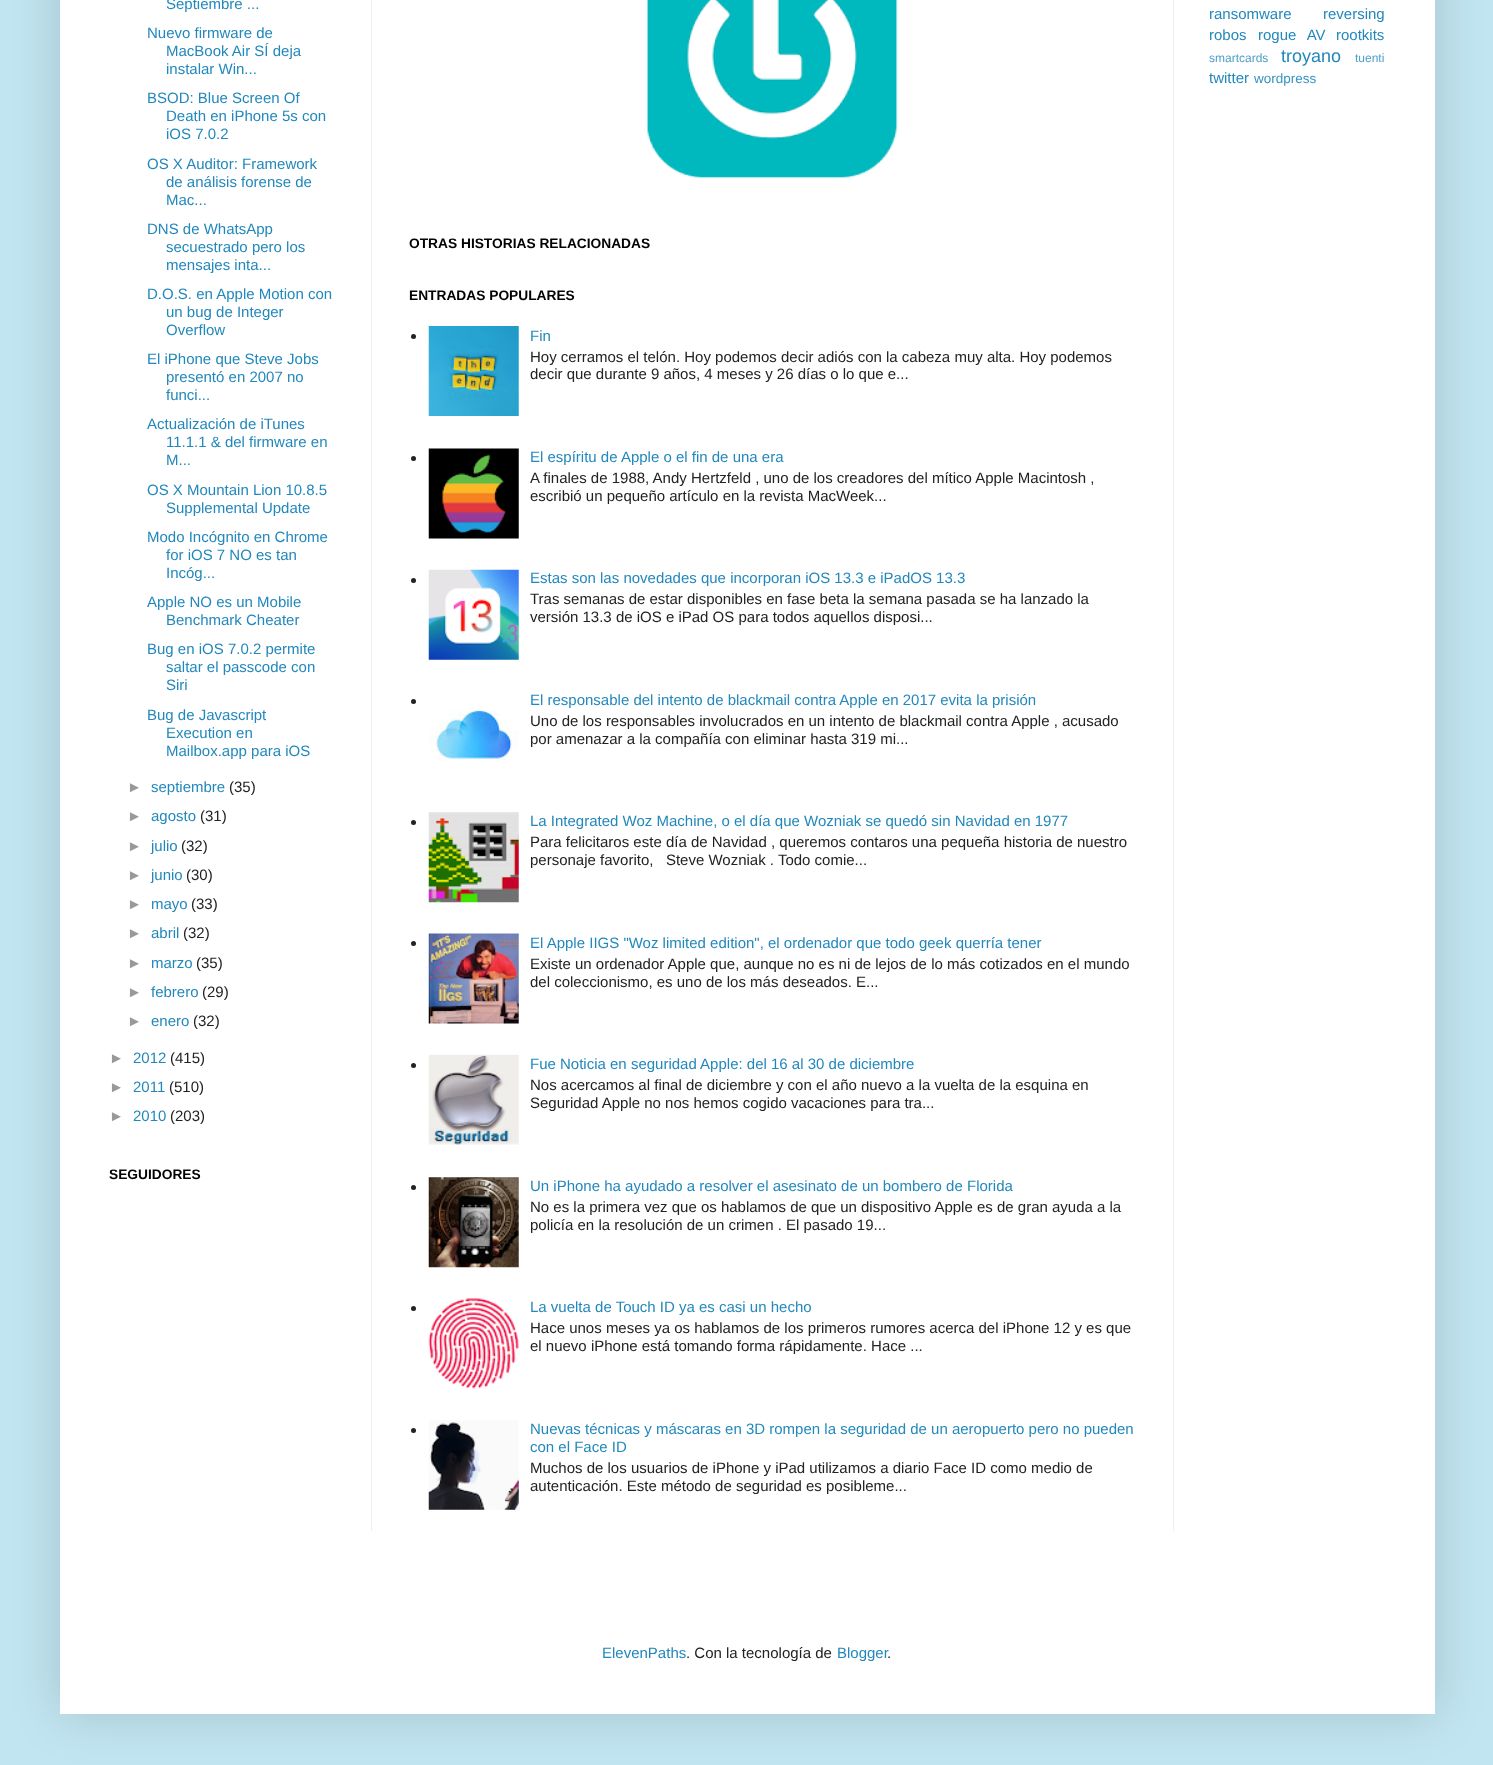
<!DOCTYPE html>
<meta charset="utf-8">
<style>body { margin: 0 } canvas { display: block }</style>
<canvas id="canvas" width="1493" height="1765"></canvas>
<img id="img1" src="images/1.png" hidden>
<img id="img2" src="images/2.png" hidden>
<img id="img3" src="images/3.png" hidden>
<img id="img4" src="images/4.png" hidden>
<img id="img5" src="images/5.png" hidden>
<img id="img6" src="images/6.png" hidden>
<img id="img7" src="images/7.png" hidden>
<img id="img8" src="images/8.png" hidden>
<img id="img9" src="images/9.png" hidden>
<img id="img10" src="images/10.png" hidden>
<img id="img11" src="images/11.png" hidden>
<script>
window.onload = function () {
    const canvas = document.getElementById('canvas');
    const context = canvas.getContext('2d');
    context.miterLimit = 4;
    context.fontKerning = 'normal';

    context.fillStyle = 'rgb(193, 229, 241)';
    context.fillRect(0, 0, 1493, 1765);
    context.fillStyle = 'rgba(0, 0, 0, 0.15)';
    context.filter = 'blur(25px)';
    context.beginPath();
    context.rect(60, -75, 1375, 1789);
    context.fill();
    context.filter = 'none';
    context.fillStyle = 'rgb(255, 255, 255)';
    context.fillRect(60, 0, 1375, 1714);
    context.drawImage(document.getElementById('img1'), 647, 0, 251, 178);
    context.fillStyle = 'rgb(34, 34, 34)';
    context.beginPath();
    context.arc(413.5, 336.5, 2.5, 0, 2 * Math.PI);
    context.fill();
    context.drawImage(document.getElementById('img2'), 428, 326, 91, 90);
    context.beginPath();
    context.arc(413.5, 458.5, 2.5, 0, 2 * Math.PI);
    context.fill();
    context.drawImage(document.getElementById('img3'), 428, 448, 91, 91);
    context.beginPath();
    context.arc(413.5, 580.5, 2.5, 0, 2 * Math.PI);
    context.fill();
    context.drawImage(document.getElementById('img4'), 428, 569, 91, 91);
    context.beginPath();
    context.arc(413.5, 701.5, 2.5, 0, 2 * Math.PI);
    context.fill();
    context.drawImage(document.getElementById('img5'), 429, 710, 90, 51);
    context.beginPath();
    context.arc(413.5, 822.5, 2.5, 0, 2 * Math.PI);
    context.fill();
    context.drawImage(document.getElementById('img6'), 428, 812, 91, 91);
    context.beginPath();
    context.arc(413.5, 943.5, 2.5, 0, 2 * Math.PI);
    context.fill();
    context.drawImage(document.getElementById('img7'), 428, 933, 91, 91);
    context.beginPath();
    context.arc(413.5, 1065.5, 2.5, 0, 2 * Math.PI);
    context.fill();
    context.drawImage(document.getElementById('img8'), 428, 1054, 91, 91);
    context.beginPath();
    context.arc(413.5, 1187.5, 2.5, 0, 2 * Math.PI);
    context.fill();
    context.drawImage(document.getElementById('img9'), 428, 1177, 91, 91);
    context.beginPath();
    context.arc(413.5, 1308.5, 2.5, 0, 2 * Math.PI);
    context.fill();
    context.drawImage(document.getElementById('img10'), 428, 1298, 91, 91);
    context.beginPath();
    context.arc(413.5, 1430.5, 2.5, 0, 2 * Math.PI);
    context.fill();
    context.drawImage(document.getElementById('img11'), 428, 1420, 91, 90);
    context.fillStyle = 'rgb(238, 238, 238)';
    context.fillRect(371, 0, 1, 1531);
    context.fillRect(1173, 0, 1, 1531);
    context.font = '15px Liberation Sans';
    context.fillStyle = 'rgb(34, 136, 187)';
    context.fillText('Septiembre ...', 166, 9);
    context.fillText('Nuevo firmware de', 147, 38);
    context.fillText('MacBook Air SÍ deja', 166, 56);
    context.fillText('instalar Win...', 166, 74);
    context.fillText('BSOD: Blue Screen Of', 147, 103);
    context.fillText('Death en iPhone 5s con', 166, 121);
    context.fillText('iOS 7.0.2', 166, 139);
    context.fillText('OS X Auditor: Framework', 147, 169);
    context.fillText('de análisis forense de', 166, 187);
    context.fillText('Mac...', 166, 205);
    context.fillText('DNS de WhatsApp', 147, 234);
    context.fillText('secuestrado pero los', 166, 252);
    context.fillText('mensajes inta...', 166, 270);
    context.fillText('D.O.S. en Apple Motion con', 147, 299);
    context.fillText('un bug de Integer', 166, 317);
    context.fillText('Overflow', 166, 335);
    context.fillText('El iPhone que Steve Jobs', 147, 364);
    context.fillText('presentó en 2007 no', 166, 382);
    context.fillText('funci...', 166, 400);
    context.fillText('Actualización de iTunes', 147, 429);
    context.fillText('11.1.1 & del firmware en', 166, 447);
    context.fillText('M...', 166, 465);
    context.fillText('OS X Mountain Lion 10.8.5', 147, 495);
    context.fillText('Supplemental Update', 166, 513);
    context.fillText('Modo Incógnito en Chrome', 147, 542);
    context.fillText('for iOS 7 NO es tan', 166, 560);
    context.fillText('Incóg...', 166, 578);
    context.fillText('Apple NO es un Mobile', 147, 607);
    context.fillText('Benchmark Cheater', 166, 625);
    context.fillText('Bug en iOS 7.0.2 permite', 147, 654);
    context.fillText('saltar el passcode con', 166, 672);
    context.fillText('Siri', 166, 690);
    context.fillText('Bug de Javascript', 147, 720);
    context.fillText('Execution en', 166, 738);
    context.fillText('Mailbox.app para iOS', 166, 756);
    context.fillStyle = 'rgb(153, 153, 153)';
    context.fillText('►', 127, 792);
    context.fillStyle = 'rgb(34, 136, 187)';
    context.fillText('septiembre', 151, 792);
    context.fillStyle = 'rgb(34, 34, 34)';
    context.fillText('(35)', 229, 792);
    context.fillStyle = 'rgb(153, 153, 153)';
    context.fillText('►', 127, 821);
    context.fillStyle = 'rgb(34, 136, 187)';
    context.fillText('agosto', 151, 821);
    context.fillStyle = 'rgb(34, 34, 34)';
    context.fillText('(31)', 200, 821);
    context.fillStyle = 'rgb(153, 153, 153)';
    context.fillText('►', 127, 851);
    context.fillStyle = 'rgb(34, 136, 187)';
    context.fillText('julio', 151, 851);
    context.fillStyle = 'rgb(34, 34, 34)';
    context.fillText('(32)', 181, 851);
    context.fillStyle = 'rgb(153, 153, 153)';
    context.fillText('►', 127, 880);
    context.fillStyle = 'rgb(34, 136, 187)';
    context.fillText('junio', 151, 880);
    context.fillStyle = 'rgb(34, 34, 34)';
    context.fillText('(30)', 186, 880);
    context.fillStyle = 'rgb(153, 153, 153)';
    context.fillText('►', 127, 909);
    context.fillStyle = 'rgb(34, 136, 187)';
    context.fillText('mayo', 151, 909);
    context.fillStyle = 'rgb(34, 34, 34)';
    context.fillText('(33)', 191, 909);
    context.fillStyle = 'rgb(153, 153, 153)';
    context.fillText('►', 127, 938);
    context.fillStyle = 'rgb(34, 136, 187)';
    context.fillText('abril', 151, 938);
    context.fillStyle = 'rgb(34, 34, 34)';
    context.fillText('(32)', 183, 938);
    context.fillStyle = 'rgb(153, 153, 153)';
    context.fillText('►', 127, 968);
    context.fillStyle = 'rgb(34, 136, 187)';
    context.fillText('marzo', 151, 968);
    context.fillStyle = 'rgb(34, 34, 34)';
    context.fillText('(35)', 196, 968);
    context.fillStyle = 'rgb(153, 153, 153)';
    context.fillText('►', 127, 997);
    context.fillStyle = 'rgb(34, 136, 187)';
    context.fillText('febrero', 151, 997);
    context.fillStyle = 'rgb(34, 34, 34)';
    context.fillText('(29)', 202, 997);
    context.fillStyle = 'rgb(153, 153, 153)';
    context.fillText('►', 127, 1026);
    context.fillStyle = 'rgb(34, 136, 187)';
    context.fillText('enero', 151, 1026);
    context.fillStyle = 'rgb(34, 34, 34)';
    context.fillText('(32)', 193, 1026);
    context.fillStyle = 'rgb(153, 153, 153)';
    context.fillText('►', 109, 1063);
    context.fillStyle = 'rgb(34, 136, 187)';
    context.fillText('2012', 133, 1063);
    context.fillStyle = 'rgb(34, 34, 34)';
    context.fillText('(415)', 170, 1063);
    context.fillStyle = 'rgb(153, 153, 153)';
    context.fillText('►', 109, 1092);
    context.fillStyle = 'rgb(34, 136, 187)';
    context.fillText('2011', 133, 1092);
    context.fillStyle = 'rgb(34, 34, 34)';
    context.fillText('(510)', 169, 1092);
    context.fillStyle = 'rgb(153, 153, 153)';
    context.fillText('►', 109, 1121);
    context.fillStyle = 'rgb(34, 136, 187)';
    context.fillText('2010', 133, 1121);
    context.fillStyle = 'rgb(34, 34, 34)';
    context.fillText('(203)', 170, 1121);
    context.font = 'bold 13.75px Liberation Sans';
    context.fillStyle = 'rgb(0, 0, 0)';
    context.fillText('SEGUIDORES', 109, 1179);
    context.font = '15px Liberation Sans';
    context.fillStyle = 'rgb(34, 136, 187)';
    context.fillText('ransomware', 1209, 19);
    context.fillText('reversing', 1323, 19);
    context.fillText('robos', 1209, 40);
    context.wordSpacing = '7px';
    context.fillText('rogue AV', 1258, 40);
    context.wordSpacing = '0px';
    context.fillText('rootkits', 1336, 40);
    context.font = '12px Liberation Sans';
    context.fillStyle = 'rgb(78, 160, 201)';
    context.fillText('smartcards', 1209, 62);
    context.font = '18px Liberation Sans';
    context.fillStyle = 'rgb(34, 136, 187)';
    context.fillText('troyano', 1281, 62);
    context.font = '12px Liberation Sans';
    context.fillStyle = 'rgb(78, 160, 201)';
    context.fillText('tuenti', 1355, 62);
    context.font = '15px Liberation Sans';
    context.fillStyle = 'rgb(34, 136, 187)';
    context.fillText('twitter', 1209, 83);
    context.font = '13.5px Liberation Sans';
    context.fillStyle = 'rgb(56, 148, 194)';
    context.fillText('wordpress', 1254, 83);
    context.font = 'bold 13.75px Liberation Sans';
    context.fillStyle = 'rgb(0, 0, 0)';
    context.fillText('OTRAS HISTORIAS RELACIONADAS', 409, 248);
    context.fillText('ENTRADAS POPULARES', 409, 300);
    context.font = '15px Liberation Sans';
    context.fillStyle = 'rgb(34, 136, 187)';
    context.fillText('Fin', 530, 341);
    context.fillStyle = 'rgb(34, 34, 34)';
    context.fillText('Hoy cerramos el telón. Hoy podemos decir adiós con la cabeza muy alta. Hoy podemos', 530, 362);
    context.fillText('decir que durante 9 años, 4 meses y 26 días o lo que e...', 530, 379);
    context.fillStyle = 'rgb(34, 136, 187)';
    context.fillText('El espíritu de Apple o el fin de una era', 530, 462);
    context.fillStyle = 'rgb(34, 34, 34)';
    context.fillText('A finales de 1988, Andy Hertzfeld , uno de los creadores del mítico Apple Macintosh ,', 530, 483);
    context.fillText('escribió un pequeño artículo en la revista MacWeek...', 530, 501);
    context.fillStyle = 'rgb(34, 136, 187)';
    context.fillText('Estas son las novedades que incorporan iOS 13.3 e iPadOS 13.3', 530, 583);
    context.fillStyle = 'rgb(34, 34, 34)';
    context.fillText('Tras semanas de estar disponibles en fase beta la semana pasada se ha lanzado la', 530, 604);
    context.fillText('versión 13.3 de iOS e iPad OS para todos aquellos disposi...', 530, 622);
    context.fillStyle = 'rgb(34, 136, 187)';
    context.fillText('El responsable del intento de blackmail contra Apple en 2017 evita la prisión', 530, 705);
    context.fillStyle = 'rgb(34, 34, 34)';
    context.fillText('Uno de los responsables involucrados en un intento de blackmail contra Apple , acusado', 530, 726);
    context.fillText('por amenazar a la compañía con eliminar hasta 319 mi...', 530, 744);
    context.fillStyle = 'rgb(34, 136, 187)';
    context.fillText('La Integrated Woz Machine, o el día que Wozniak se quedó sin Navidad en 1977', 530, 826);
    context.fillStyle = 'rgb(34, 34, 34)';
    context.fillText('Para felicitaros este día de Navidad , queremos contaros una pequeña historia de nuestro', 530, 847);
    context.fillText('personaje favorito,   Steve Wozniak . Todo comie...', 530, 865);
    context.fillStyle = 'rgb(34, 136, 187)';
    context.fillText('El Apple IIGS "Woz limited edition", el ordenador que todo geek querría tener', 530, 948);
    context.fillStyle = 'rgb(34, 34, 34)';
    context.fillText('Existe un ordenador Apple que, aunque no es ni de lejos de lo más cotizados en el mundo', 530, 969);
    context.fillText('del coleccionismo, es uno de los más deseados. E...', 530, 987);
    context.fillStyle = 'rgb(34, 136, 187)';
    context.fillText('Fue Noticia en seguridad Apple: del 16 al 30 de diciembre', 530, 1069);
    context.fillStyle = 'rgb(34, 34, 34)';
    context.fillText('Nos acercamos al final de diciembre y con el año nuevo a la vuelta de la esquina en', 530, 1090);
    context.fillText('Seguridad Apple no nos hemos cogido vacaciones para tra...', 530, 1108);
    context.fillStyle = 'rgb(34, 136, 187)';
    context.fillText('Un iPhone ha ayudado a resolver el asesinato de un bombero de Florida', 530, 1191);
    context.fillStyle = 'rgb(34, 34, 34)';
    context.fillText('No es la primera vez que os hablamos de que un dispositivo Apple es de gran ayuda a la', 530, 1212);
    context.fillText('policía en la resolución de un crimen . El pasado 19...', 530, 1230);
    context.fillStyle = 'rgb(34, 136, 187)';
    context.fillText('La vuelta de Touch ID ya es casi un hecho', 530, 1312);
    context.fillStyle = 'rgb(34, 34, 34)';
    context.fillText('Hace unos meses ya os hablamos de los primeros rumores acerca del iPhone 12 y es que', 530, 1333);
    context.fillText('el nuevo iPhone está tomando forma rápidamente. Hace ...', 530, 1351);
    context.fillStyle = 'rgb(34, 136, 187)';
    context.fillText('Nuevas técnicas y máscaras en 3D rompen la seguridad de un aeropuerto pero no pueden', 530, 1434);
    context.fillText('con el Face ID', 530, 1452);
    context.fillStyle = 'rgb(34, 34, 34)';
    context.fillText('Muchos de los usuarios de iPhone y iPad utilizamos a diario Face ID como medio de', 530, 1473);
    context.fillText('autenticación. Este método de seguridad es posibleme...', 530, 1491);
    context.fillStyle = 'rgb(34, 136, 187)';
    context.fillText('ElevenPaths', 602, 1658);
    context.fillStyle = 'rgb(34, 34, 34)';
    context.fillText('. Con la tecnología de', 686, 1658);
    context.fillStyle = 'rgb(34, 136, 187)';
    context.fillText('Blogger', 837, 1658);
    context.fillStyle = 'rgb(34, 34, 34)';
    context.fillText('.', 887, 1658);
};
</script>
